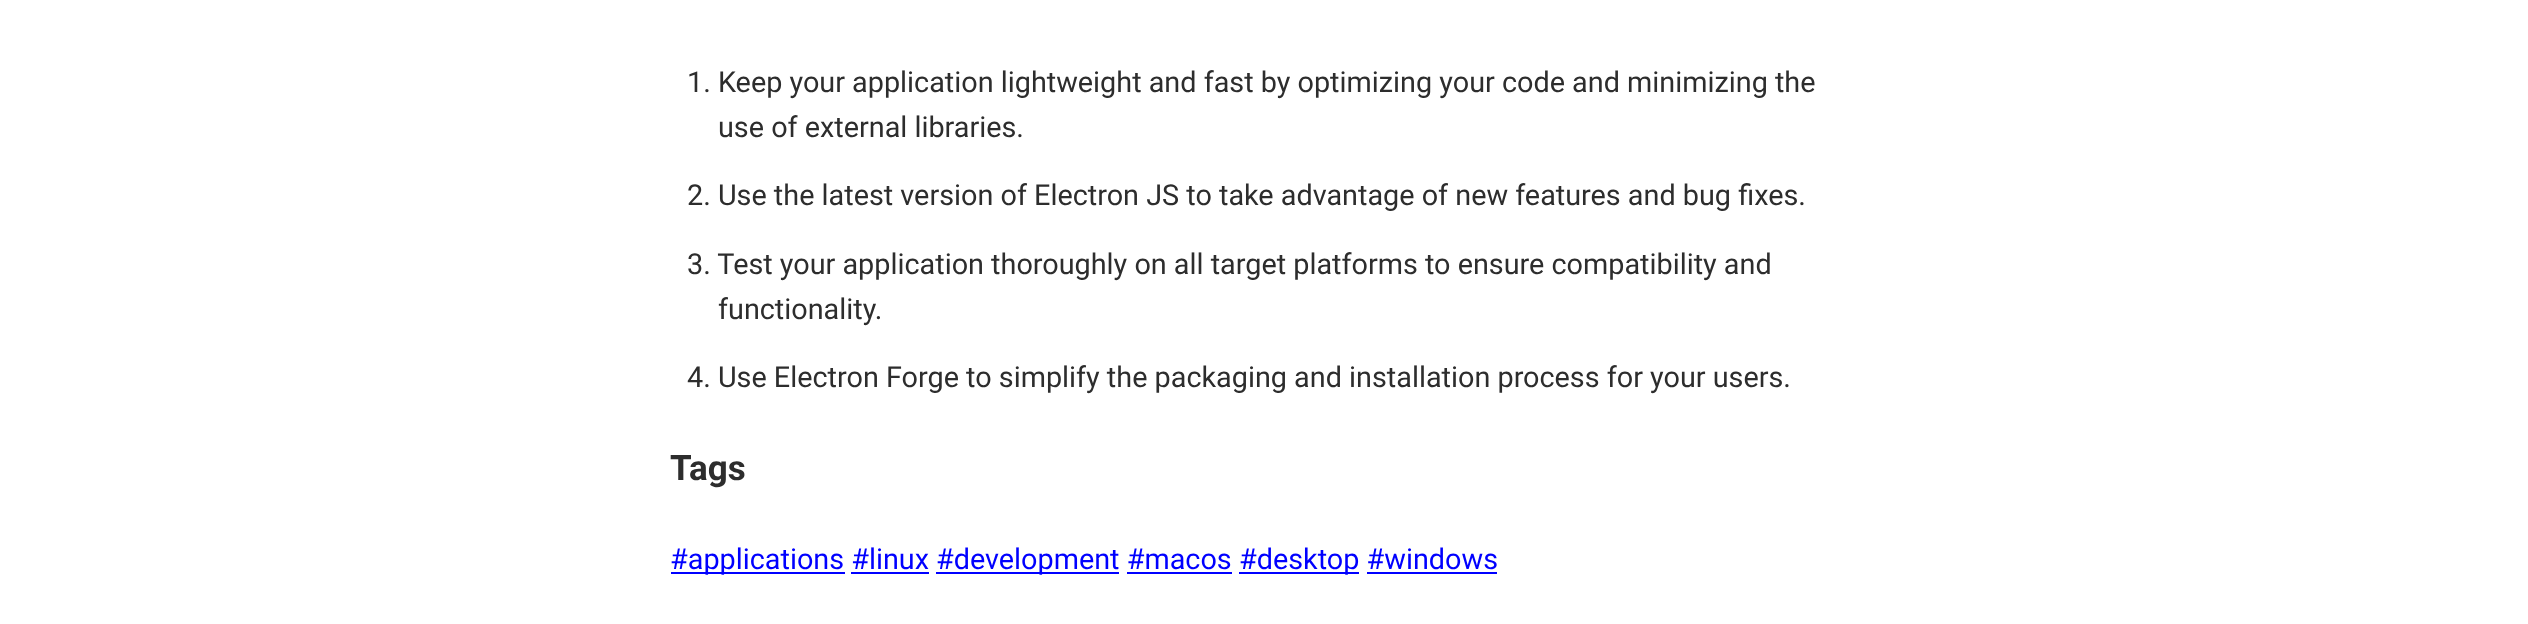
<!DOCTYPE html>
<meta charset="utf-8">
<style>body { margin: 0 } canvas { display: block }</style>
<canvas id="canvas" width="2528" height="624"></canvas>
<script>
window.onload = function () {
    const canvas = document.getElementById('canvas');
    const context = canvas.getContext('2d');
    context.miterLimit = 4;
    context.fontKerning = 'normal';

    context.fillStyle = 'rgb(255, 255, 255)';
    context.fillRect(0, 0, 2528, 624);
    context.fillStyle = 'rgb(0, 0, 255)';
    context.fillRect(671, 572, 174, 2);
    context.fillRect(936, 572, 183, 2);
    context.fillRect(1239, 572, 120, 2);
    context.fillRect(851, 572, 78, 2);
    context.fillRect(1127, 572, 105, 2);
    context.fillRect(1367, 572, 130, 2);
    context.font = '28.8px Roboto';
    context.fillStyle = 'rgb(45, 45, 45)';
    context.fillText('1. Keep your application lightweight and fast by optimizing your code and minimizing the', 687, 92);
    context.fillText('use of external libraries.', 718, 137);
    context.fillText('2. Use the latest version of Electron JS to take advantage of new features and bug fixes.', 687, 205);
    context.fillText('3. Test your application thoroughly on all target platforms to ensure compatibility and', 687, 274);
    context.fillText('functionality.', 718, 319);
    context.fillText('4. Use Electron Forge to simplify the packaging and installation process for your users.', 687, 387);
    context.font = 'bold 35px Roboto';
    context.fillText('Tags', 670, 480);
    context.font = '28.8px Roboto';
    context.fillStyle = 'rgb(0, 0, 255)';
    context.fillText('#applications #linux', 670, 569);
    context.fillText('#development #macos', 936, 569);
    context.fillText('#desktop #windows', 1239, 569);
};
</script>
